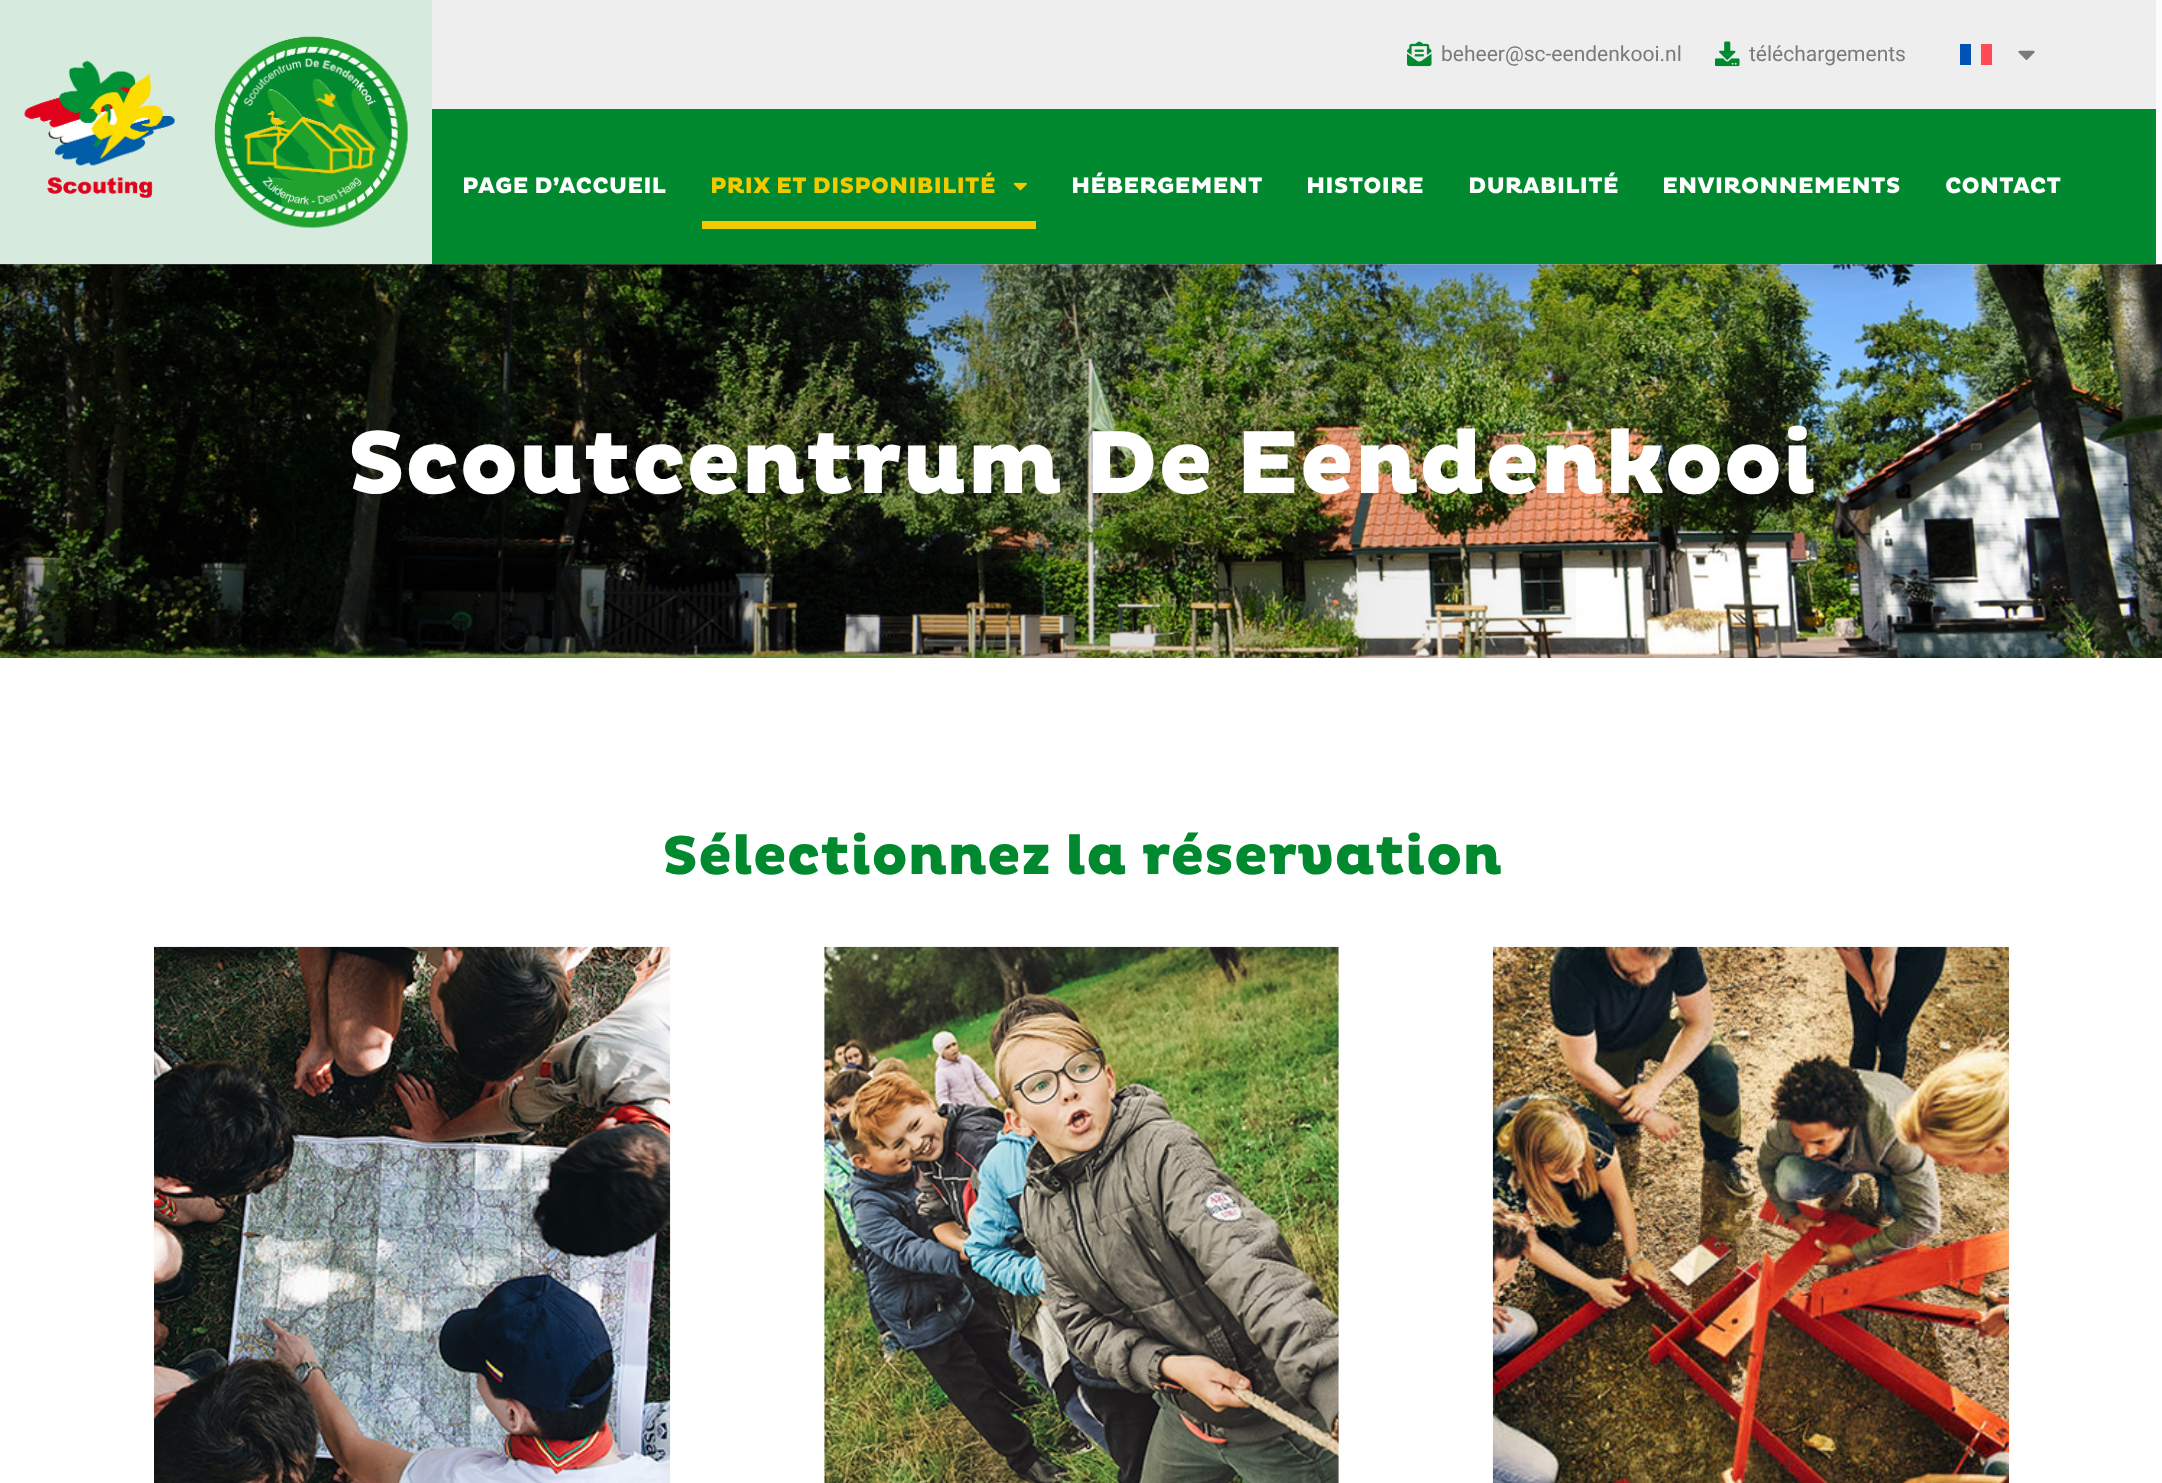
<!DOCTYPE html>
<meta charset="utf-8">
<style>body { margin: 0 } canvas { display: block }</style>
<canvas id="canvas" width="2162" height="1483"></canvas>
<img id="img1" src="images/6.png" hidden>
<img id="img2" src="images/1.png" hidden>
<img id="img3" src="images/2.png" hidden>
<img id="img4" src="images/3.png" hidden>
<img id="img5" src="images/4.png" hidden>
<img id="img6" src="images/5.png" hidden>
<img id="img7" src="images/7.png" hidden>
<img id="img8" src="images/8.png" hidden>
<img id="img9" src="images/9.png" hidden>
<script>
window.onload = function () {
    const canvas = document.getElementById('canvas');
    const context = canvas.getContext('2d');
    context.miterLimit = 4;
    context.fontKerning = 'normal';
    let gradient;

    context.fillStyle = 'rgb(255, 255, 255)';
    context.fillRect(0, 0, 2162, 1483);
    context.drawImage(document.getElementById('img1'), 0, 264, 2162, 394);
    gradient = context.createLinearGradient(0, 461, 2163, 461);
    gradient.addColorStop(0, 'rgba(0, 0, 0, 0.4)');
    gradient.addColorStop(0.77, 'rgba(0, 0, 0, 0)');
    context.fillStyle = gradient;
    context.fillRect(0, 264, 1576, 394);
    context.fillStyle = 'rgba(0, 0, 0, 0.15)';
    context.filter = 'blur(21px)';
    context.beginPath();
    context.rect(0, 0, 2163, 264);
    context.fill();
    context.filter = 'none';
    context.fillStyle = 'rgb(252, 252, 252)';
    context.fillRect(2156, 0, 6, 264);
    context.fillStyle = 'rgb(214, 235, 221)';
    context.fillRect(0, 0, 432, 264);
    context.drawImage(document.getElementById('img2'), 24, 36, 384, 192);
    context.fillStyle = 'rgb(238, 238, 238)';
    context.fillRect(432, 0, 1724, 109);
    context.drawImage(document.getElementById('img3'), 1407, 41, 25, 26);
    context.drawImage(document.getElementById('img4'), 1715, 41, 25, 26);
    context.fillStyle = 'rgb(255, 75, 85)';
    context.fillRect(1981, 44, 11, 21);
    context.fillStyle = 'rgb(0, 82, 180)';
    context.fillRect(1960, 44, 11, 21);
    context.drawImage(document.getElementById('img5'), 2018, 50, 17, 10);
    context.fillStyle = 'rgb(0, 137, 46)';
    context.fillRect(432, 109, 1724, 155);
    context.drawImage(document.getElementById('img6'), 1013, 182, 14, 9);
    context.fillStyle = 'rgb(243, 201, 2)';
    context.fillRect(702, 221, 334, 8);
    context.drawImage(document.getElementById('img7'), 154, 946, 517, 537);
    context.drawImage(document.getElementById('img8'), 824, 946, 515, 537);
    context.drawImage(document.getElementById('img9'), 1492, 946, 517, 537);
    context.font = '21px Roboto';
    context.fillStyle = 'rgb(122, 122, 122)';
    context.fillText('beheer@sc-eendenkooi.nl', 1441, 61);
    context.fillText('téléchargements', 1749, 61);
    context.font = '900 22.75px "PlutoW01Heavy"';
    context.fillStyle = 'rgb(255, 255, 255)';
    context.fillText('PAGE D’ACCUEIL', 462, 193);
    context.fillStyle = 'rgb(243, 201, 2)';
    context.fillText('PRIX ET DISPONIBILITÉ', 710, 193);
    context.fillStyle = 'rgb(255, 255, 255)';
    context.fillText('HÉBERGEMENT', 1071, 193);
    context.fillText('HISTOIRE', 1306, 193);
    context.fillText('DURABILITÉ', 1468, 193);
    context.fillText('ENVIRONNEMENTS', 1662, 193);
    context.fillText('CONTACT', 1945, 193);
    context.font = '900 91px "PlutoW01Heavy"';
    context.fillText('Scoutcentrum De Eendenkooi', 347, 493);
    context.font = '900 56px "PlutoW01Heavy"';
    context.fillStyle = 'rgb(0, 137, 46)';
    context.fillText('Sélectionnez la réservation', 662, 874);
};
</script>
